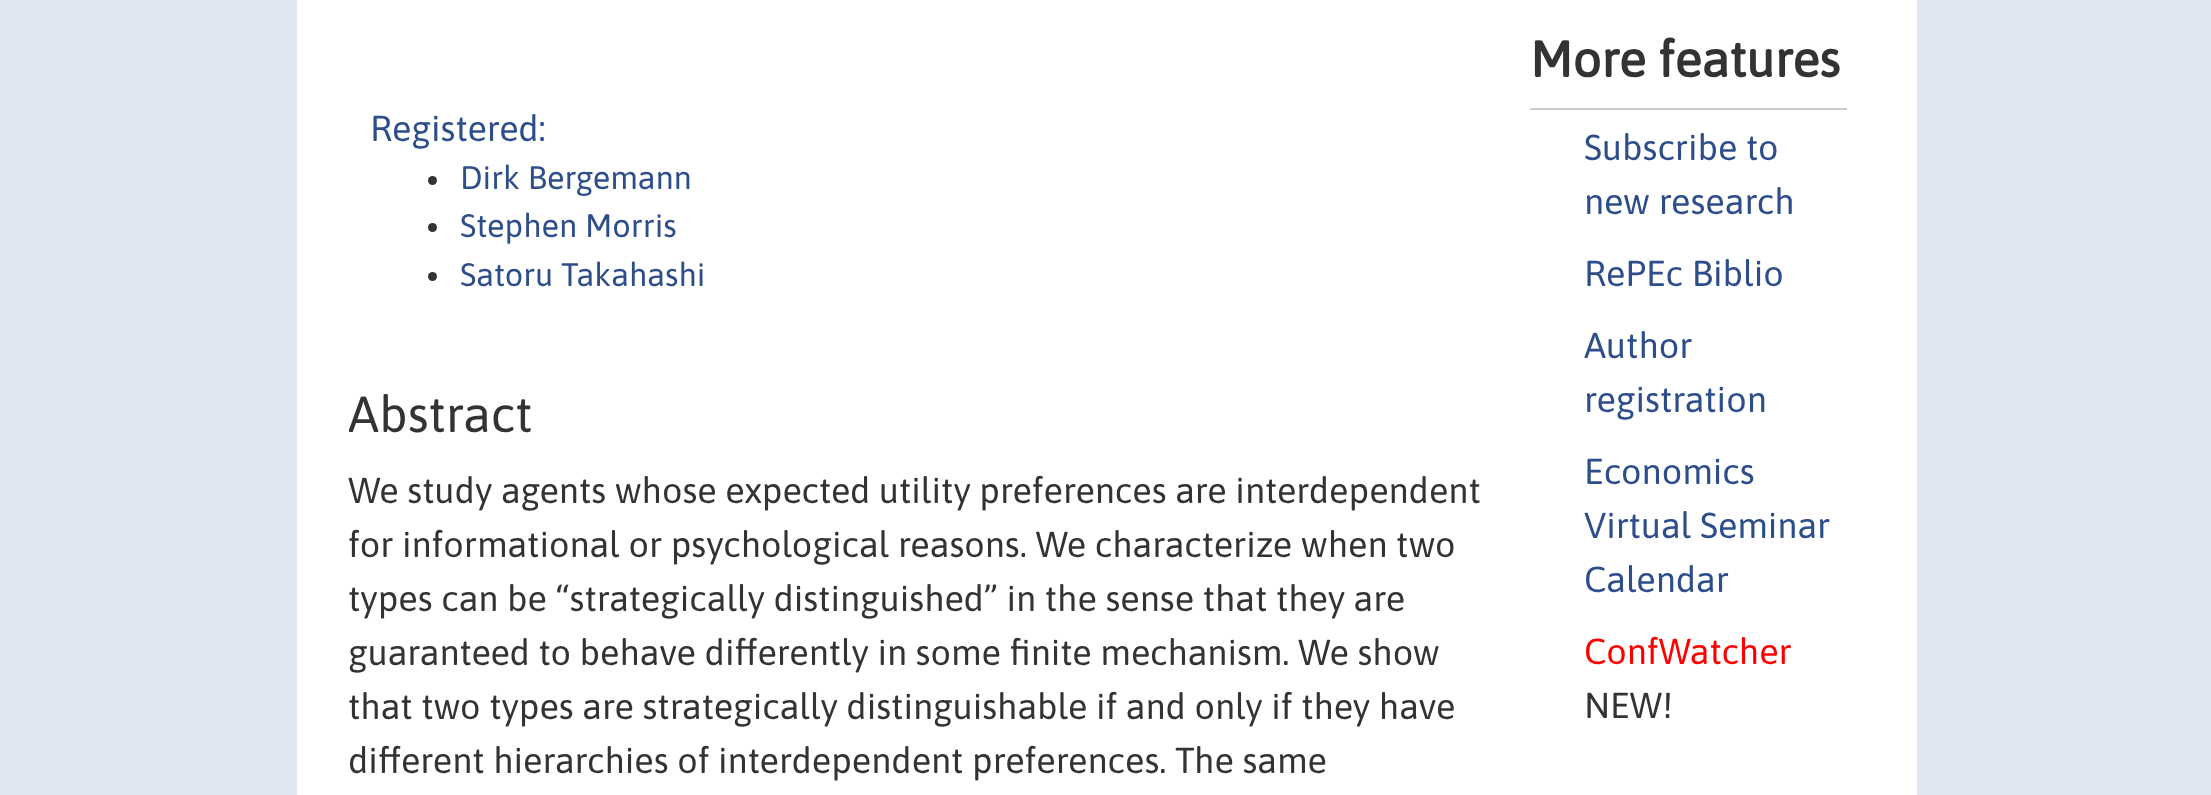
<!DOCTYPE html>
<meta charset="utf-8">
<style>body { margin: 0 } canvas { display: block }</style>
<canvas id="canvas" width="2211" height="795"></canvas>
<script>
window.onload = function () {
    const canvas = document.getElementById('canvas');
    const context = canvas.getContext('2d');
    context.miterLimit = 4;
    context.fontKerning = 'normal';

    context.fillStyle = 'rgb(223, 231, 242)';
    context.fillRect(0, 0, 2211, 795);
    context.fillStyle = 'rgb(255, 255, 255)';
    context.fillRect(297, 0, 1620, 795);
    context.fillStyle = 'rgb(51, 51, 51)';
    context.beginPath();
    context.arc(432.5, 180.5, 4.5, 0, 2 * Math.PI);
    context.fill();
    context.beginPath();
    context.arc(432.5, 227.5, 4.5, 0, 2 * Math.PI);
    context.fill();
    context.beginPath();
    context.arc(432.5, 276.5, 4.5, 0, 2 * Math.PI);
    context.fill();
    context.fillStyle = 'rgb(204, 204, 204)';
    context.fillRect(1530, 108, 317, 2);
    context.font = '36px Asap';
    context.fillStyle = 'rgb(45, 78, 139)';
    context.fillText('Registered:', 370, 141);
    context.font = '32.5px Asap';
    context.fillText('Dirk Bergemann', 460, 189);
    context.fillText('Stephen Morris', 460, 237);
    context.fillText('Satoru Takahashi', 460, 286);
    context.save();
    context.beginPath();
    context.rect(349, 360, 1145, 86);
    context.clip();
    context.font = '50.5px Asap';
    context.fillStyle = 'rgb(51, 51, 51)';
    context.fillText('Abstract', 348, 432);
    context.restore();
    context.font = '36px Asap';
    context.fillStyle = 'rgb(51, 51, 51)';
    context.fillText('We study agents whose expected utility preferences are interdependent', 348, 503);
    context.fillText('for informational or psychological reasons. We characterize when two', 348, 557);
    context.fillText('types can be “strategically distinguished” in the sense that they are', 348, 611);
    context.fillText('guaranteed to behave differently in some finite mechanism. We show', 348, 665);
    context.fillText('that two types are strategically distinguishable if and only if they have', 348, 719);
    context.fillText('different hierarchies of interdependent preferences. The same', 348, 773);
    context.font = 'bold 50.5px Asap';
    context.fillText('More features', 1530, 77);
    context.font = '36px Asap';
    context.fillStyle = 'rgb(45, 78, 139)';
    context.fillText('Subscribe to', 1584, 160);
    context.fillText('new research', 1584, 214);
    context.fillText('RePEc Biblio', 1584, 286);
    context.fillText('Author', 1584, 358);
    context.fillText('registration', 1584, 412);
    context.fillText('Economics', 1584, 484);
    context.fillText('Virtual Seminar', 1584, 538);
    context.fillText('Calendar', 1584, 592);
    context.fillStyle = 'rgb(255, 0, 0)';
    context.fillText('ConfWatcher', 1584, 664);
    context.fillStyle = 'rgb(51, 51, 51)';
    context.fillText('NEW!', 1584, 718);
};
</script>
